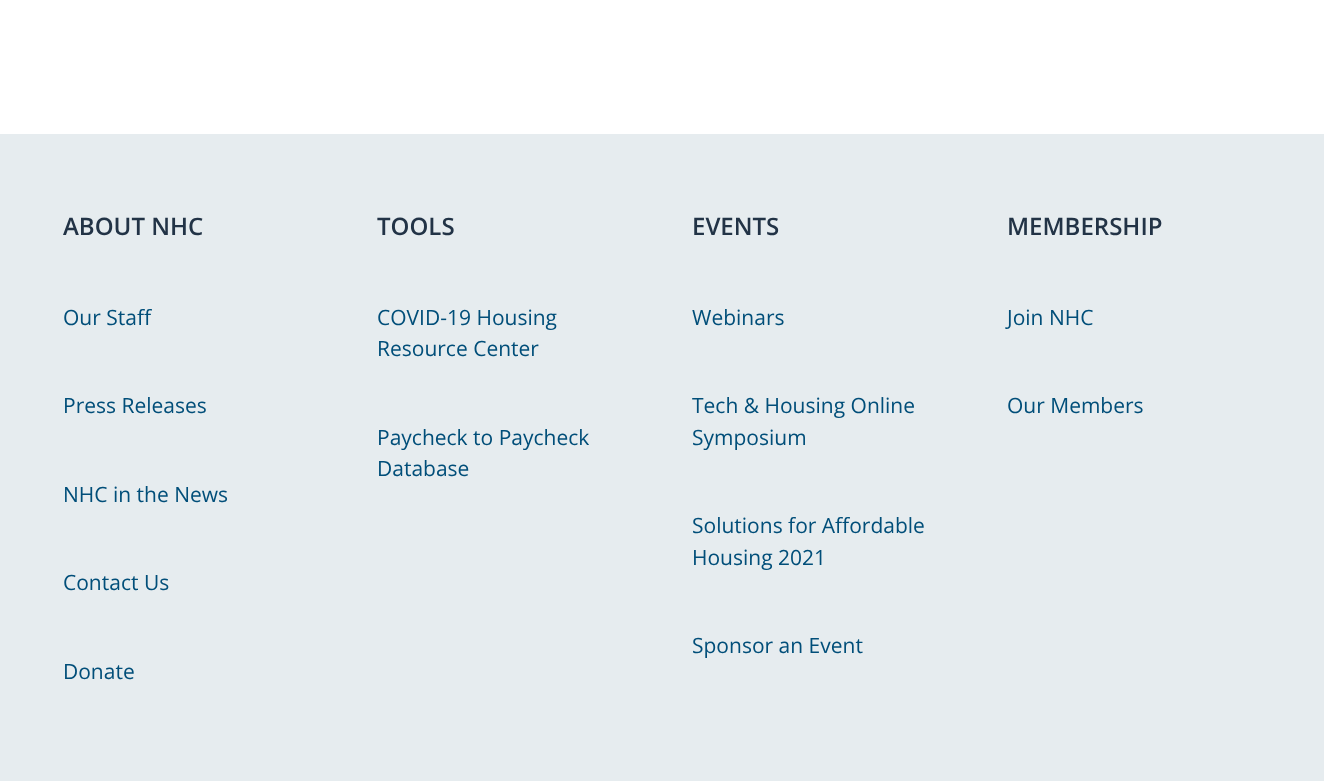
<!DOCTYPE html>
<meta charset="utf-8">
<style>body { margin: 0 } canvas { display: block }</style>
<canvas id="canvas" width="1324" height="781"></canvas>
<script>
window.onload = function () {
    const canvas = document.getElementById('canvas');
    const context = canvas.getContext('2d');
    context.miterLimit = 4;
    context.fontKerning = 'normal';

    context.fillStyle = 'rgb(255, 255, 255)';
    context.fillRect(0, 0, 1324, 781);
    context.fillStyle = 'rgb(230, 236, 239)';
    context.fillRect(0, 134, 1324, 647);
    context.font = '600 24px Open Sans';
    context.fillStyle = 'rgb(34, 51, 70)';
    context.fillText('ABOUT NHC', 63, 235);
    context.font = '21px Open Sans';
    context.fillStyle = 'rgb(1, 78, 121)';
    context.fillText('Our Staff', 63, 325);
    context.fillText('Press Releases', 63, 413);
    context.fillText('NHC in the News', 63, 502);
    context.fillText('Contact Us', 63, 590);
    context.fillText('Donate', 63, 679);
    context.font = '600 24px Open Sans';
    context.fillStyle = 'rgb(34, 51, 70)';
    context.fillText('TOOLS', 377, 235);
    context.font = '21px Open Sans';
    context.fillStyle = 'rgb(1, 78, 121)';
    context.fillText('COVID-19 Housing', 377, 325);
    context.fillText('Resource Center', 377, 356);
    context.fillText('Paycheck to Paycheck', 377, 445);
    context.fillText('Database', 377, 476);
    context.font = '600 24px Open Sans';
    context.fillStyle = 'rgb(34, 51, 70)';
    context.fillText('EVENTS', 692, 235);
    context.font = '21px Open Sans';
    context.fillStyle = 'rgb(1, 78, 121)';
    context.fillText('Webinars', 692, 325);
    context.fillText('Tech & Housing Online', 692, 413);
    context.fillText('Symposium', 692, 445);
    context.fillText('Solutions for Affordable', 692, 533);
    context.fillText('Housing 2021', 692, 565);
    context.fillText('Sponsor an Event', 692, 653);
    context.font = '600 24px Open Sans';
    context.fillStyle = 'rgb(34, 51, 70)';
    context.fillText('MEMBERSHIP', 1007, 235);
    context.font = '21px Open Sans';
    context.fillStyle = 'rgb(1, 78, 121)';
    context.fillText('Join NHC', 1007, 325);
    context.fillText('Our Members', 1007, 413);
};
</script>
